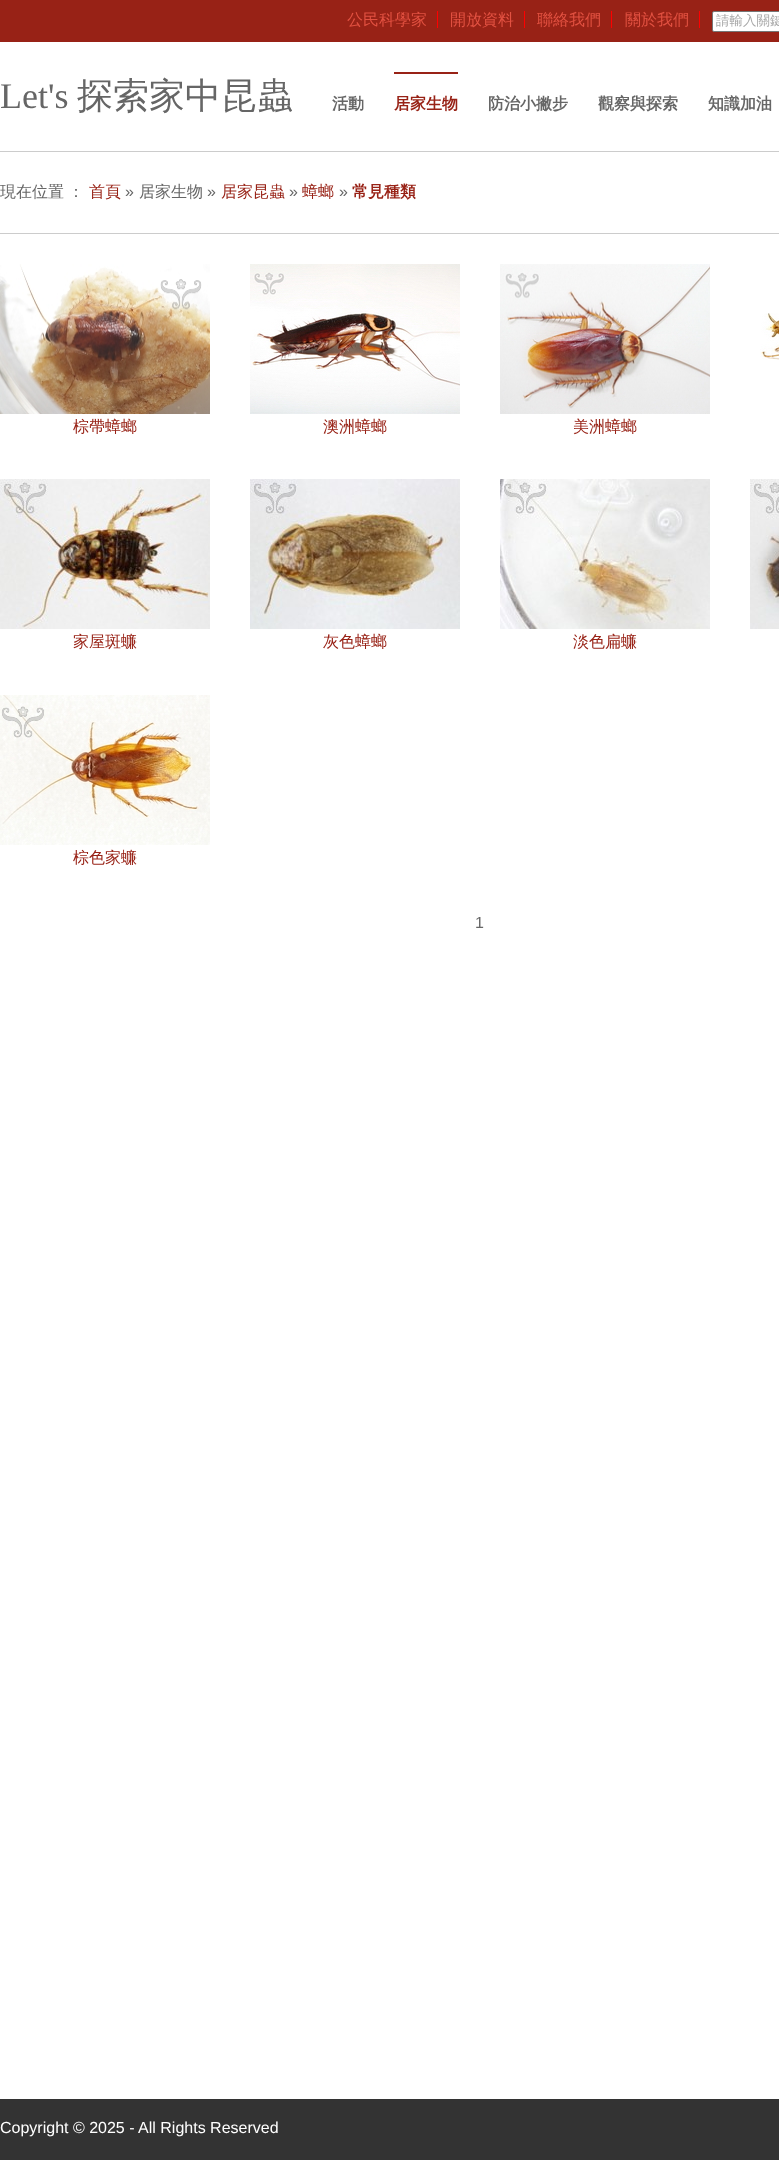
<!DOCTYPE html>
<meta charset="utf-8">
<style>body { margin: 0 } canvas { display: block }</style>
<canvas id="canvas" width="779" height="2160"></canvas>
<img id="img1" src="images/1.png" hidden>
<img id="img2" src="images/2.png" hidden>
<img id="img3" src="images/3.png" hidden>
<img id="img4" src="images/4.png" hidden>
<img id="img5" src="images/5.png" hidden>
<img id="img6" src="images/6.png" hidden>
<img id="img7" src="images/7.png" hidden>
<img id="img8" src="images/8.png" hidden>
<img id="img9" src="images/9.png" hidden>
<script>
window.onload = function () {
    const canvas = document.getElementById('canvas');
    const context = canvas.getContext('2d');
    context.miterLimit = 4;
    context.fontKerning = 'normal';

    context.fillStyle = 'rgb(51, 51, 51)';
    context.fillRect(0, 0, 779, 2160);
    context.fillStyle = 'rgb(152, 34, 22)';
    context.fillRect(0, 0, 779, 42);
    context.fillStyle = 'rgb(255, 0, 0)';
    context.fillRect(437, 11, 1, 17);
    context.fillRect(524, 11, 1, 17);
    context.fillRect(611, 11, 1, 17);
    context.fillRect(699, 11, 1, 17);
    context.fillStyle = 'rgb(255, 255, 255)';
    context.beginPath();
    context.roundRect(712.5, 11.5, 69, 20, 1.5);
    context.fill();
    context.strokeStyle = 'rgb(118, 118, 118)';
    context.stroke();
    context.fillRect(0, 42, 779, 109);
    context.fillStyle = 'rgb(152, 34, 22)';
    context.fillRect(394, 72, 64, 2);
    context.fillStyle = 'rgb(255, 255, 255)';
    context.fillRect(0, 152, 779, 81);
    context.fillStyle = 'rgb(204, 204, 204)';
    context.fillRect(0, 151, 779, 1);
    context.fillRect(0, 233, 779, 1);
    context.fillStyle = 'rgb(255, 255, 255)';
    context.fillRect(0, 234, 779, 1865);
    context.drawImage(document.getElementById('img1'), 760, 313, 19, 47);
    context.drawImage(document.getElementById('img2'), 0, 264, 210, 150);
    context.drawImage(document.getElementById('img3'), 250, 264, 210, 150);
    context.drawImage(document.getElementById('img4'), 500, 264, 210, 150);
    context.drawImage(document.getElementById('img5'), 750, 479, 29, 150);
    context.drawImage(document.getElementById('img6'), 0, 479, 210, 150);
    context.drawImage(document.getElementById('img7'), 250, 479, 210, 150);
    context.drawImage(document.getElementById('img8'), 500, 479, 210, 150);
    context.drawImage(document.getElementById('img9'), 0, 695, 210, 150);
    context.font = '500 16px WenQuanYi Zen Hei';
    context.fillStyle = 'rgb(226, 81, 65)';
    context.fillText('公民科學家', 347, 25);
    context.fillText('開放資料', 450, 25);
    context.fillText('聯絡我們', 537, 25);
    context.fillText('關於我們', 625, 25);
    context.font = '500 13.5px WenQuanYi Zen Hei';
    context.fillStyle = 'rgb(168, 168, 168)';
    context.fillText('請輸入關鍵', 716, 25);
    context.font = '36px Liberation Serif';
    context.fillStyle = 'rgb(102, 102, 102)';
    context.fillText('Let\'s', 0, 108);
    context.font = '500 36px WenQuanYi Zen Hei';
    context.fillText('探索家中昆蟲', 77, 108);
    context.font = 'bold 16px WenQuanYi Zen Hei';
    context.fillText('活動', 332, 109);
    context.fillStyle = 'rgb(152, 34, 22)';
    context.fillText('居家生物', 394, 109);
    context.fillStyle = 'rgb(102, 102, 102)';
    context.fillText('防治小撇步', 488, 109);
    context.fillText('觀察與探索', 598, 109);
    context.fillText('知識加油', 708, 109);
    context.font = '500 16px WenQuanYi Zen Hei';
    context.fillText('現在位置', 0, 197);
    context.fillText('：', 68, 197);
    context.fillStyle = 'rgb(152, 34, 22)';
    context.fillText('首頁', 89, 197);
    context.font = '16px Liberation Sans';
    context.fillStyle = 'rgb(102, 102, 102)';
    context.fillText('»', 125, 197);
    context.font = '500 16px WenQuanYi Zen Hei';
    context.fillText('居家生物', 139, 197);
    context.font = '16px Liberation Sans';
    context.fillText('»', 207, 197);
    context.font = '500 16px WenQuanYi Zen Hei';
    context.fillStyle = 'rgb(152, 34, 22)';
    context.fillText('居家昆蟲', 221, 197);
    context.font = '16px Liberation Sans';
    context.fillStyle = 'rgb(102, 102, 102)';
    context.fillText('»', 289, 197);
    context.font = '500 16px WenQuanYi Zen Hei';
    context.fillStyle = 'rgb(152, 34, 22)';
    context.fillText('蟑螂', 302, 197);
    context.font = '16px Liberation Sans';
    context.fillStyle = 'rgb(102, 102, 102)';
    context.fillText('»', 339, 197);
    context.font = 'bold 16px WenQuanYi Zen Hei';
    context.fillStyle = 'rgb(152, 34, 22)';
    context.fillText('常見種類', 352, 197);
    context.font = '500 16px WenQuanYi Zen Hei';
    context.fillText('棕帶蟑螂', 73, 432);
    context.fillText('澳洲蟑螂', 323, 432);
    context.fillText('美洲蟑螂', 573, 432);
    context.fillText('家屋斑蠊', 73, 647);
    context.fillText('灰色蟑螂', 323, 647);
    context.fillText('淡色扁蠊', 573, 647);
    context.fillText('棕色家蠊', 73, 863);
    context.font = '16px Liberation Sans';
    context.fillStyle = 'rgb(102, 102, 102)';
    context.fillText('1', 475, 928);
    context.fillStyle = 'rgb(255, 255, 255)';
    context.fillText('Copyright © 2025 - All Rights Reserved', 0, 2133);
};
</script>
